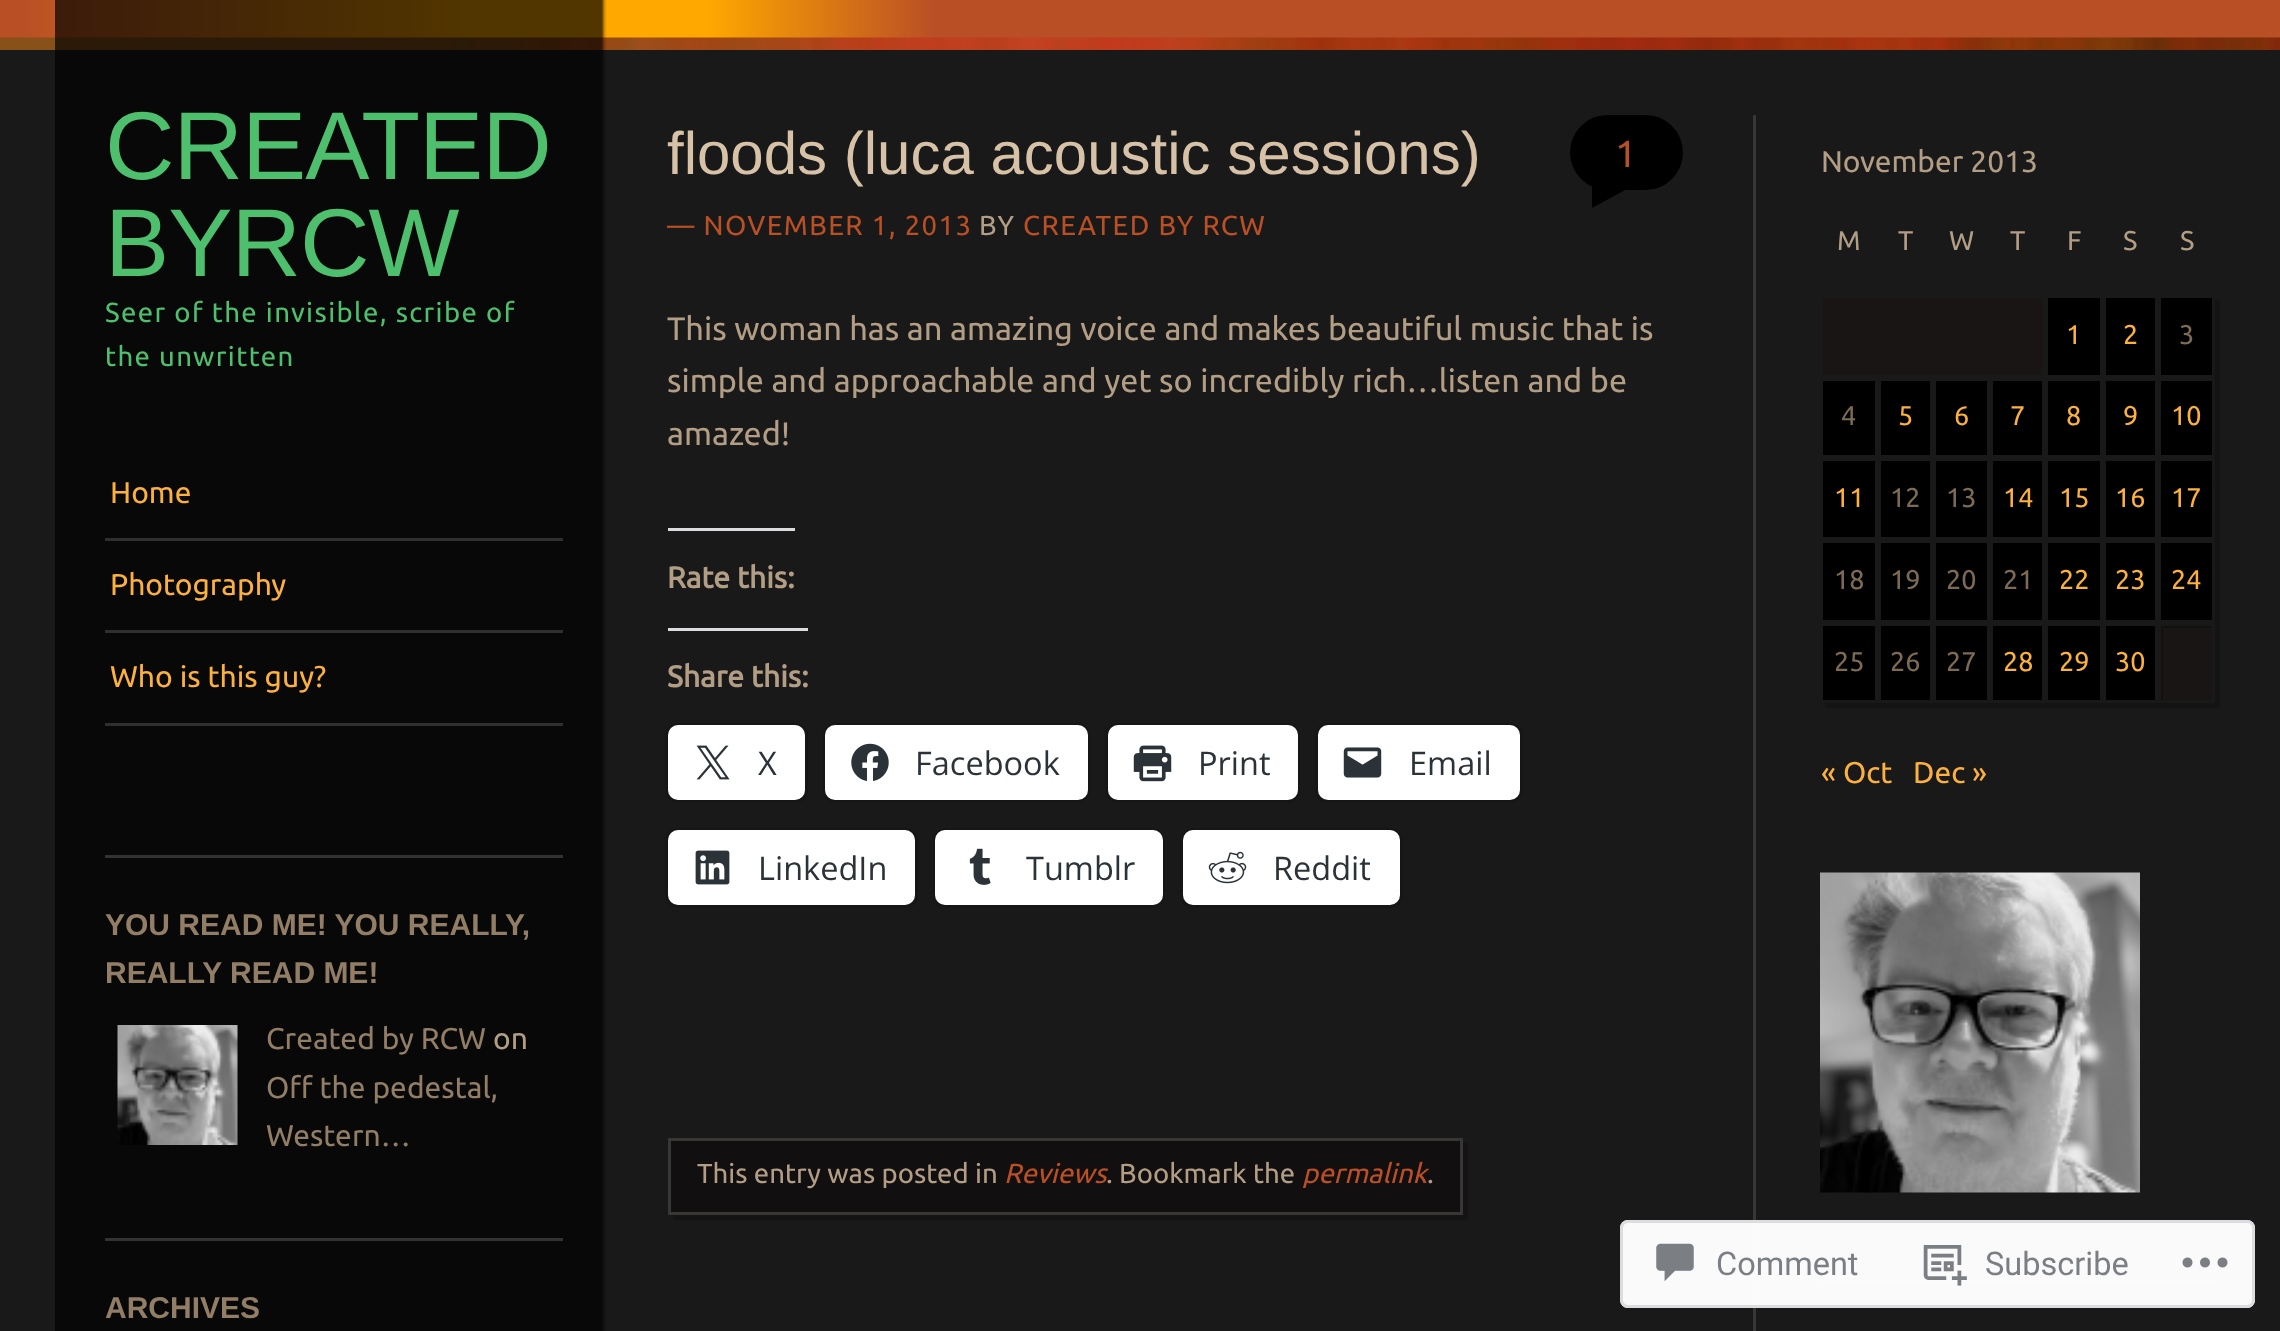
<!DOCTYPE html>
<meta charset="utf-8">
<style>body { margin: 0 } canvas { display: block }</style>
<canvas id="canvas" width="2280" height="1331"></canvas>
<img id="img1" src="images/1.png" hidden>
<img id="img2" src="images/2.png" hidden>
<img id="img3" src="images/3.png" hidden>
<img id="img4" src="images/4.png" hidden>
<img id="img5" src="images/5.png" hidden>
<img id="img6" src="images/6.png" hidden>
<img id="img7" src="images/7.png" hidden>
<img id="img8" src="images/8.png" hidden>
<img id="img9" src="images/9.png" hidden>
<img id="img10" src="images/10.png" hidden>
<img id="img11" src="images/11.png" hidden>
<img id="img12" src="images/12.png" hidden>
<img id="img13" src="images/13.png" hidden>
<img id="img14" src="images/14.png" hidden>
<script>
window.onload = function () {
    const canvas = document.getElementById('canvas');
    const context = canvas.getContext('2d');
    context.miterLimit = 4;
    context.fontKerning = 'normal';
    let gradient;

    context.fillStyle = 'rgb(25, 25, 25)';
    context.fillRect(0, 0, 2280, 1331);
    gradient = context.createLinearGradient(0, 25, 2280, 25);
    gradient.addColorStop(0.01, 'rgb(185, 79, 37)');
    gradient.addColorStop(0.21, 'rgb(255, 168, 0)');
    gradient.addColorStop(0.31, 'rgb(255, 168, 0)');
    gradient.addColorStop(0.41, 'rgb(185, 79, 37)');
    context.fillStyle = gradient;
    context.fillRect(0, 0, 2280, 38);
    context.drawImage(document.getElementById('img1'), 0, 37, 2280, 13);
    context.drawImage(document.getElementById('img2'), 55, 0, 552, 1331);
    context.fillStyle = 'rgb(48, 47, 45)';
    context.fillRect(105, 538, 458, 3);
    context.fillRect(105, 630, 458, 3);
    context.fillRect(105, 723, 458, 3);
    context.fillStyle = 'rgb(51, 51, 51)';
    context.fillRect(105, 855, 458, 3);
    context.drawImage(document.getElementById('img3'), 117, 1025, 121, 120);
    context.fillRect(105, 1238, 458, 3);
    context.fillStyle = 'rgb(0, 0, 0)';
    context.beginPath();
    context.roundRect(1570, 115, 113, 75, 37.5);
    context.fill();
    context.beginPath();
    context.moveTo(1592, 208);
    context.lineTo(1592, 182);
    context.lineTo(1640, 182);
    context.closePath();
    context.fill();
    context.fillStyle = 'rgb(220, 220, 222)';
    context.fillRect(668, 528, 127, 3);
    context.fillRect(668, 628, 140, 3);
    context.beginPath();
    context.roundRect(666.5, 724.5, 140, 77, 11.5);
    context.strokeStyle = 'rgb(22, 22, 22)';
    context.lineWidth = 3;
    context.stroke();
    context.fillStyle = 'rgb(255, 255, 255)';
    context.beginPath();
    context.roundRect(668, 725, 137, 75, 10);
    context.fill();
    context.drawImage(document.getElementById('img4'), 696, 745, 34, 35);
    context.beginPath();
    context.roundRect(824.5, 724.5, 264, 77, 11.5);
    context.stroke();
    context.beginPath();
    context.roundRect(825, 725, 263, 75, 10);
    context.fill();
    context.drawImage(document.getElementById('img5'), 851, 743, 38, 38);
    context.beginPath();
    context.roundRect(1106.5, 724.5, 192, 77, 11.5);
    context.stroke();
    context.beginPath();
    context.roundRect(1108, 725, 190, 75, 10);
    context.fill();
    context.drawImage(document.getElementById('img6'), 1133, 745, 39, 37);
    context.beginPath();
    context.roundRect(1316.5, 724.5, 205, 77, 11.5);
    context.stroke();
    context.beginPath();
    context.roundRect(1318, 725, 202, 75, 10);
    context.fill();
    context.drawImage(document.getElementById('img7'), 1343, 747, 39, 31);
    context.beginPath();
    context.roundRect(666.5, 829.5, 250, 77, 11.5);
    context.stroke();
    context.beginPath();
    context.roundRect(668, 830, 247, 75, 10);
    context.fill();
    context.drawImage(document.getElementById('img8'), 695, 850, 35, 35);
    context.beginPath();
    context.roundRect(934.5, 829.5, 229, 77, 11.5);
    context.stroke();
    context.beginPath();
    context.roundRect(935, 830, 228, 75, 10);
    context.fill();
    context.drawImage(document.getElementById('img9'), 969, 848, 22, 37);
    context.beginPath();
    context.roundRect(1181.5, 829.5, 220, 77, 11.5);
    context.stroke();
    context.beginPath();
    context.roundRect(1183, 830, 217, 75, 10);
    context.fill();
    context.drawImage(document.getElementById('img10'), 1208, 851, 39, 33);
    context.fillStyle = 'rgb(20, 20, 20)';
    context.beginPath();
    context.moveTo(673, 1215);
    context.lineTo(673, 1220);
    context.lineTo(1468, 1220);
    context.lineTo(1468, 1143);
    context.lineTo(1462, 1143);
    context.lineTo(1462, 1215);
    context.closePath();
    context.fill();
    context.fillStyle = 'rgb(18, 15, 16)';
    context.beginPath();
    context.rect(669.5, 1139.5, 792, 74);
    context.fill();
    context.strokeStyle = 'rgb(57, 54, 54)';
    context.stroke();
    context.fillStyle = 'rgb(57, 54, 54)';
    context.fillRect(1753, 115, 3, 1216);
    context.fillStyle = 'rgb(24, 21, 20)';
    context.fillRect(1823, 298, 389, 402);
    context.strokeStyle = 'rgb(25, 25, 25)';
    context.strokeRect(1821.5, 296.5, 222, 80);
    context.fillStyle = 'rgb(0, 0, 0)';
    context.beginPath();
    context.rect(2046.5, 296.5, 55, 80);
    context.fill();
    context.stroke();
    context.beginPath();
    context.rect(2104.5, 296.5, 52, 80);
    context.fill();
    context.stroke();
    context.fillStyle = 'rgba(0, 0, 0, 0.2)';
    context.beginPath();
    context.moveTo(2163, 378);
    context.lineTo(2163, 383);
    context.lineTo(2220, 383);
    context.lineTo(2220, 300);
    context.lineTo(2215, 300);
    context.lineTo(2215, 378);
    context.closePath();
    context.fill();
    context.fillStyle = 'rgb(0, 0, 0)';
    context.beginPath();
    context.rect(2159.5, 296.5, 54, 80);
    context.fill();
    context.stroke();
    context.beginPath();
    context.rect(1821.5, 379.5, 55, 77);
    context.fill();
    context.stroke();
    context.beginPath();
    context.rect(1879.5, 379.5, 52, 77);
    context.fill();
    context.stroke();
    context.beginPath();
    context.rect(1934.5, 379.5, 54, 77);
    context.fill();
    context.stroke();
    context.beginPath();
    context.rect(1991.5, 379.5, 52, 77);
    context.fill();
    context.stroke();
    context.beginPath();
    context.rect(2046.5, 379.5, 55, 77);
    context.fill();
    context.stroke();
    context.beginPath();
    context.rect(2104.5, 379.5, 52, 77);
    context.fill();
    context.stroke();
    context.fillStyle = 'rgba(0, 0, 0, 0.2)';
    context.beginPath();
    context.moveTo(2163, 458);
    context.lineTo(2163, 463);
    context.lineTo(2220, 463);
    context.lineTo(2220, 383);
    context.lineTo(2215, 383);
    context.lineTo(2215, 458);
    context.closePath();
    context.fill();
    context.fillStyle = 'rgb(0, 0, 0)';
    context.beginPath();
    context.rect(2159.5, 379.5, 54, 77);
    context.fill();
    context.stroke();
    context.beginPath();
    context.rect(1821.5, 459.5, 55, 79);
    context.fill();
    context.stroke();
    context.beginPath();
    context.rect(1879.5, 459.5, 52, 79);
    context.fill();
    context.stroke();
    context.beginPath();
    context.rect(1934.5, 459.5, 54, 79);
    context.fill();
    context.stroke();
    context.beginPath();
    context.rect(1991.5, 459.5, 52, 79);
    context.fill();
    context.stroke();
    context.beginPath();
    context.rect(2046.5, 459.5, 55, 79);
    context.fill();
    context.stroke();
    context.beginPath();
    context.rect(2104.5, 459.5, 52, 79);
    context.fill();
    context.stroke();
    context.fillStyle = 'rgba(0, 0, 0, 0.2)';
    context.beginPath();
    context.moveTo(2163, 540);
    context.lineTo(2163, 545);
    context.lineTo(2220, 545);
    context.lineTo(2220, 463);
    context.lineTo(2215, 463);
    context.lineTo(2215, 540);
    context.closePath();
    context.fill();
    context.fillStyle = 'rgb(0, 0, 0)';
    context.beginPath();
    context.rect(2159.5, 459.5, 54, 79);
    context.fill();
    context.stroke();
    context.beginPath();
    context.rect(1821.5, 541.5, 55, 80);
    context.fill();
    context.stroke();
    context.beginPath();
    context.rect(1879.5, 541.5, 52, 80);
    context.fill();
    context.stroke();
    context.beginPath();
    context.rect(1934.5, 541.5, 54, 80);
    context.fill();
    context.stroke();
    context.beginPath();
    context.rect(1991.5, 541.5, 52, 80);
    context.fill();
    context.stroke();
    context.beginPath();
    context.rect(2046.5, 541.5, 55, 80);
    context.fill();
    context.stroke();
    context.fillStyle = 'rgb(19, 17, 16)';
    context.beginPath();
    context.moveTo(2108, 622);
    context.lineTo(2108, 628);
    context.lineTo(2163, 628);
    context.lineTo(2163, 545);
    context.lineTo(2158, 545);
    context.lineTo(2158, 622);
    context.closePath();
    context.fill();
    context.fillStyle = 'rgb(0, 0, 0)';
    context.beginPath();
    context.rect(2104.5, 541.5, 52, 80);
    context.fill();
    context.stroke();
    context.fillStyle = 'rgba(0, 0, 0, 0.2)';
    context.beginPath();
    context.moveTo(2163, 622);
    context.lineTo(2163, 628);
    context.lineTo(2220, 628);
    context.lineTo(2220, 545);
    context.lineTo(2215, 545);
    context.lineTo(2215, 622);
    context.closePath();
    context.fill();
    context.fillStyle = 'rgb(0, 0, 0)';
    context.beginPath();
    context.rect(2159.5, 541.5, 54, 80);
    context.fill();
    context.stroke();
    context.fillStyle = 'rgba(0, 0, 0, 0.2)';
    context.beginPath();
    context.moveTo(1825, 702);
    context.lineTo(1825, 708);
    context.lineTo(1883, 708);
    context.lineTo(1883, 628);
    context.lineTo(1878, 628);
    context.lineTo(1878, 702);
    context.closePath();
    context.fill();
    context.fillStyle = 'rgb(0, 0, 0)';
    context.beginPath();
    context.rect(1821.5, 624.5, 55, 77);
    context.fill();
    context.stroke();
    context.fillStyle = 'rgba(0, 0, 0, 0.2)';
    context.beginPath();
    context.moveTo(1883, 702);
    context.lineTo(1883, 708);
    context.lineTo(1938, 708);
    context.lineTo(1938, 628);
    context.lineTo(1932, 628);
    context.lineTo(1932, 702);
    context.closePath();
    context.fill();
    context.fillStyle = 'rgb(0, 0, 0)';
    context.beginPath();
    context.rect(1879.5, 624.5, 52, 77);
    context.fill();
    context.stroke();
    context.fillStyle = 'rgba(0, 0, 0, 0.2)';
    context.beginPath();
    context.moveTo(1938, 702);
    context.lineTo(1938, 708);
    context.lineTo(1995, 708);
    context.lineTo(1995, 628);
    context.lineTo(1990, 628);
    context.lineTo(1990, 702);
    context.closePath();
    context.fill();
    context.fillStyle = 'rgb(0, 0, 0)';
    context.beginPath();
    context.rect(1934.5, 624.5, 54, 77);
    context.fill();
    context.stroke();
    context.fillStyle = 'rgba(0, 0, 0, 0.2)';
    context.beginPath();
    context.moveTo(1995, 702);
    context.lineTo(1995, 708);
    context.lineTo(2050, 708);
    context.lineTo(2050, 628);
    context.lineTo(2045, 628);
    context.lineTo(2045, 702);
    context.closePath();
    context.fill();
    context.fillStyle = 'rgb(0, 0, 0)';
    context.beginPath();
    context.rect(1991.5, 624.5, 52, 77);
    context.fill();
    context.stroke();
    context.fillStyle = 'rgba(0, 0, 0, 0.2)';
    context.beginPath();
    context.moveTo(2050, 702);
    context.lineTo(2050, 708);
    context.lineTo(2108, 708);
    context.lineTo(2108, 628);
    context.lineTo(2102, 628);
    context.lineTo(2102, 702);
    context.closePath();
    context.fill();
    context.fillStyle = 'rgb(0, 0, 0)';
    context.beginPath();
    context.rect(2046.5, 624.5, 55, 77);
    context.fill();
    context.stroke();
    context.fillStyle = 'rgba(0, 0, 0, 0.2)';
    context.beginPath();
    context.moveTo(2108, 702);
    context.lineTo(2108, 708);
    context.lineTo(2163, 708);
    context.lineTo(2163, 628);
    context.lineTo(2158, 628);
    context.lineTo(2158, 702);
    context.closePath();
    context.fill();
    context.fillStyle = 'rgb(0, 0, 0)';
    context.beginPath();
    context.rect(2104.5, 624.5, 52, 77);
    context.fill();
    context.stroke();
    context.fillStyle = 'rgba(0, 0, 0, 0.2)';
    context.beginPath();
    context.moveTo(2163, 702);
    context.lineTo(2163, 708);
    context.lineTo(2220, 708);
    context.lineTo(2220, 628);
    context.lineTo(2215, 628);
    context.lineTo(2215, 702);
    context.closePath();
    context.fill();
    context.strokeRect(2159.5, 624.5, 54, 77);
    context.drawImage(document.getElementById('img11'), 1820, 872, 320, 321);
    context.fillStyle = 'rgb(57, 54, 54)';
    context.fillRect(1820, 1280, 395, 3);
    context.fillStyle = 'rgba(255, 255, 255, 0.98)';
    context.beginPath();
    context.roundRect(1620, 1220, 635, 88, 8);
    context.fill();
    context.beginPath();
    context.roundRect(1621.5, 1221.5, 632, 85, 6.5);
    context.strokeStyle = 'rgba(220, 220, 222, 0.98)';
    context.stroke();
    context.drawImage(document.getElementById('img12'), 1656, 1243, 38, 39);
    context.drawImage(document.getElementById('img13'), 1923, 1245, 44, 41);
    context.drawImage(document.getElementById('img14'), 2182, 1257, 46, 11);
    context.letterSpacing = '-1px';
    context.font = '96.25px Liberation Sans';
    context.fillStyle = 'rgb(78, 191, 108)';
    context.fillText('CREATED', 105, 179);
    context.fillText('BYRCW', 105, 276);
    context.letterSpacing = '1.4px';
    context.font = '27.5px Ubuntu';
    context.fillText('Seer of the invisible, scribe of', 105, 322);
    context.fillText('the unwritten', 105, 366);
    context.letterSpacing = '0px';
    context.font = '30px Ubuntu';
    context.fillStyle = 'rgb(252, 176, 62)';
    context.fillText('Home', 110, 503);
    context.fillText('Photography', 110, 595);
    context.fillText('Who is this guy?', 110, 687);
    context.font = 'bold 30px Liberation Sans';
    context.fillStyle = 'rgb(146, 126, 102)';
    context.fillText('YOU READ ME! YOU REALLY,', 105, 935);
    context.fillText('REALLY READ ME!', 105, 983);
    context.font = '30px Ubuntu';
    context.fillText('Created by RCW', 266, 1049);
    context.fillStyle = 'rgb(178, 157, 133)';
    context.fillText('on', 493, 1049);
    context.fillStyle = 'rgb(146, 126, 102)';
    context.fillText('Off the pedestal,', 266, 1098);
    context.fillText('Western…', 266, 1146);
    context.font = 'bold 30px Liberation Sans';
    context.fillText('ARCHIVES', 105, 1318);
    context.font = '60px Liberation Sans';
    context.fillStyle = 'rgb(215, 194, 168)';
    context.fillText('floods (luca acoustic sessions)', 667, 174);
    context.font = '38px Ubuntu';
    context.fillStyle = 'rgb(185, 79, 37)';
    context.fillText('1', 1615, 167);
    context.letterSpacing = '1.4px';
    context.font = '27.5px Ubuntu';
    context.fillText('— NOVEMBER 1, 2013', 667, 235);
    context.fillStyle = 'rgb(178, 157, 133)';
    context.fillText('BY', 979, 235);
    context.fillStyle = 'rgb(185, 79, 37)';
    context.fillText('CREATED BY RCW', 1023, 235);
    context.letterSpacing = '0px';
    context.font = '32.5px Ubuntu';
    context.fillStyle = 'rgb(178, 157, 133)';
    context.fillText('This woman has an amazing voice and makes beautiful music that is', 667, 340);
    context.fillText('simple and approachable and yet so incredibly rich…listen and be', 667, 392);
    context.fillText('amazed!', 667, 445);
    context.font = 'bold 30px Ubuntu';
    context.fillText('Rate this:', 667, 588);
    context.fillText('Share this:', 667, 687);
    context.font = '32.5px Open Sans';
    context.fillStyle = 'rgb(44, 51, 56)';
    context.fillText('X', 758, 775);
    context.fillText('Facebook', 915, 775);
    context.fillText('Print', 1198, 775);
    context.fillText('Email', 1409, 775);
    context.fillText('LinkedIn', 758, 880);
    context.fillText('Tumblr', 1026, 880);
    context.fillText('Reddit', 1273, 880);
    context.font = '27.5px Ubuntu';
    context.fillStyle = 'rgb(178, 157, 133)';
    context.fillText('This entry was posted in', 697, 1183);
    context.font = 'italic 27.5px Ubuntu';
    context.fillStyle = 'rgb(185, 79, 37)';
    context.fillText('Reviews', 1004, 1183);
    context.font = '27.5px Ubuntu';
    context.fillStyle = 'rgb(178, 157, 133)';
    context.fillText('. Bookmark the', 1106, 1183);
    context.font = 'italic 27.5px Ubuntu';
    context.fillStyle = 'rgb(185, 79, 37)';
    context.fillText('permalink', 1302, 1183);
    context.font = '27.5px Ubuntu';
    context.fillStyle = 'rgb(178, 157, 133)';
    context.fillText('.', 1427, 1183);
    context.font = '30px Ubuntu';
    context.fillText('November 2013', 1821, 172);
    context.font = '27px Ubuntu';
    context.fillText('M', 1837, 250);
    context.fillText('T', 1898, 250);
    context.fillText('W', 1949, 250);
    context.fillText('T', 2010, 250);
    context.fillText('F', 2067, 250);
    context.fillText('S', 2123, 250);
    context.fillText('S', 2180, 250);
    context.fillStyle = 'rgb(252, 176, 62)';
    context.fillText('1', 2066, 344);
    context.fillText('2', 2123, 344);
    context.fillStyle = 'rgb(126, 107, 84)';
    context.fillText('3', 2179, 344);
    context.fillText('4', 1841, 425);
    context.fillStyle = 'rgb(252, 176, 62)';
    context.fillText('5', 1898, 425);
    context.fillText('6', 1954, 425);
    context.fillText('7', 2010, 425);
    context.fillText('8', 2066, 425);
    context.fillText('9', 2123, 425);
    context.fillText('10', 2171, 425);
    context.fillText('11', 1834, 507);
    context.fillStyle = 'rgb(126, 107, 84)';
    context.fillText('12', 1890, 507);
    context.fillText('13', 1946, 507);
    context.fillStyle = 'rgb(252, 176, 62)';
    context.fillText('14', 2003, 507);
    context.fillText('15', 2059, 507);
    context.fillText('16', 2115, 507);
    context.fillText('17', 2171, 507);
    context.fillStyle = 'rgb(126, 107, 84)';
    context.fillText('18', 1834, 589);
    context.fillText('19', 1890, 589);
    context.fillText('20', 1946, 589);
    context.fillText('21', 2003, 589);
    context.fillStyle = 'rgb(252, 176, 62)';
    context.fillText('22', 2059, 589);
    context.fillText('23', 2115, 589);
    context.fillText('24', 2171, 589);
    context.fillStyle = 'rgb(126, 107, 84)';
    context.fillText('25', 1834, 671);
    context.fillText('26', 1890, 671);
    context.fillText('27', 1946, 671);
    context.fillStyle = 'rgb(252, 176, 62)';
    context.fillText('28', 2003, 671);
    context.fillText('29', 2059, 671);
    context.fillText('30', 2115, 671);
    context.font = '30px Ubuntu';
    context.fillText('« Oct', 1821, 783);
    context.fillText('Dec »', 1913, 783);
    context.font = '32.5px Roboto';
    context.fillStyle = 'rgb(123, 127, 132)';
    context.fillText('Comment', 1716, 1275);
    context.fillText('Subscribe', 1985, 1275);
};
</script>
